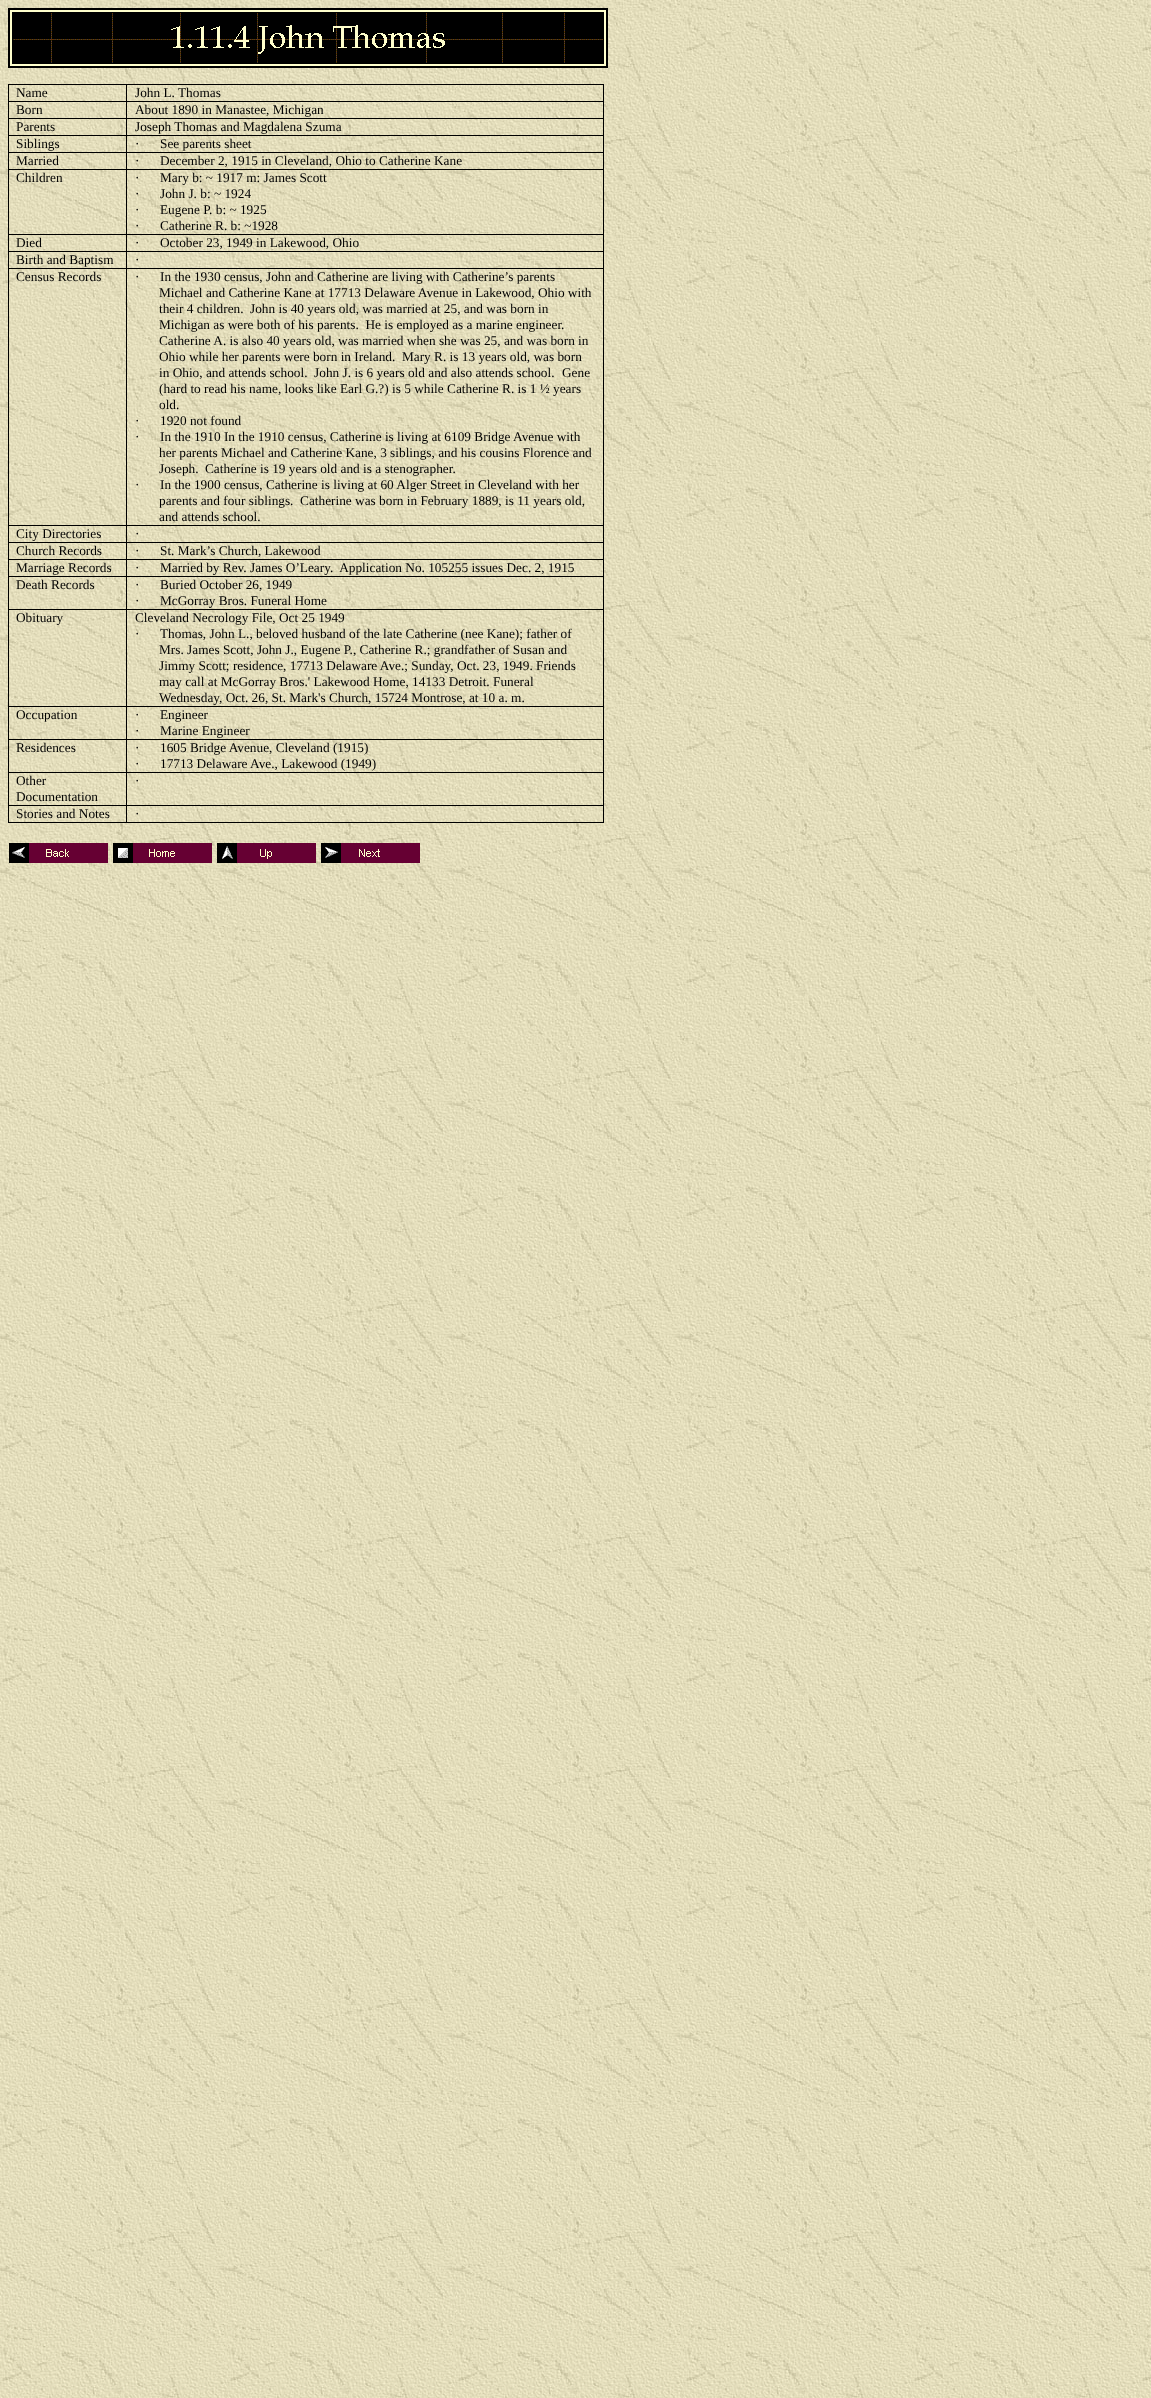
<!DOCTYPE html>
<meta charset="utf-8">
<style>body { margin: 0 } canvas { display: block }</style>
<canvas id="canvas" width="1151" height="2398"></canvas>
<img id="img1" src="images/1.png" hidden>
<img id="img2" src="images/2.png" hidden>
<img id="img3" src="images/3.png" hidden>
<img id="img4" src="images/4.png" hidden>
<img id="img5" src="images/5.png" hidden>
<img id="img6" src="images/6.png" hidden>
<script>
window.onload = function () {
    const canvas = document.getElementById('canvas');
    const context = canvas.getContext('2d');
    context.miterLimit = 4;
    context.fontKerning = 'normal';

    context.fillStyle = 'rgb(255, 255, 255)';
    context.fillRect(0, 0, 1151, 2398);
    context.drawImage(document.getElementById('img1'), 0, 0, 1151, 2398);
    context.drawImage(document.getElementById('img2'), 8, 8, 600, 60);
    context.fillStyle = 'rgb(0, 0, 0)';
    context.fillRect(8, 84, 596, 1);
    context.fillRect(603, 101, 1, 722);
    context.fillRect(603, 84, 1, 18);
    context.fillRect(126, 822, 478, 1);
    context.fillRect(126, 805, 1, 18);
    context.fillRect(126, 805, 478, 1);
    context.fillRect(126, 772, 1, 34);
    context.fillRect(126, 772, 478, 1);
    context.fillRect(126, 739, 1, 34);
    context.fillRect(126, 739, 478, 1);
    context.fillRect(126, 706, 1, 34);
    context.fillRect(126, 706, 478, 1);
    context.fillRect(126, 609, 1, 98);
    context.fillRect(126, 609, 478, 1);
    context.fillRect(126, 576, 1, 34);
    context.fillRect(126, 576, 478, 1);
    context.fillRect(126, 559, 1, 18);
    context.fillRect(126, 559, 478, 1);
    context.fillRect(126, 542, 1, 18);
    context.fillRect(126, 542, 478, 1);
    context.fillRect(126, 525, 1, 18);
    context.fillRect(126, 525, 478, 1);
    context.fillRect(126, 268, 1, 258);
    context.fillRect(126, 268, 478, 1);
    context.fillRect(126, 251, 1, 18);
    context.fillRect(126, 251, 478, 1);
    context.fillRect(126, 234, 1, 18);
    context.fillRect(126, 234, 478, 1);
    context.fillRect(126, 169, 1, 66);
    context.fillRect(126, 169, 478, 1);
    context.fillRect(126, 152, 1, 18);
    context.fillRect(126, 152, 478, 1);
    context.fillRect(126, 135, 1, 18);
    context.fillRect(126, 135, 478, 1);
    context.fillRect(126, 118, 1, 18);
    context.fillRect(126, 118, 478, 1);
    context.fillRect(126, 101, 1, 18);
    context.fillRect(126, 101, 478, 1);
    context.fillRect(126, 84, 1, 18);
    context.fillRect(8, 822, 119, 1);
    context.fillRect(8, 805, 1, 18);
    context.fillRect(8, 805, 119, 1);
    context.fillRect(8, 772, 1, 34);
    context.fillRect(8, 772, 119, 1);
    context.fillRect(8, 739, 1, 34);
    context.fillRect(8, 739, 119, 1);
    context.fillRect(8, 706, 1, 34);
    context.fillRect(8, 706, 119, 1);
    context.fillRect(8, 609, 1, 98);
    context.fillRect(8, 609, 119, 1);
    context.fillRect(8, 576, 1, 34);
    context.fillRect(8, 576, 119, 1);
    context.fillRect(8, 559, 1, 18);
    context.fillRect(8, 559, 119, 1);
    context.fillRect(8, 542, 1, 18);
    context.fillRect(8, 542, 119, 1);
    context.fillRect(8, 525, 1, 18);
    context.fillRect(8, 525, 119, 1);
    context.fillRect(8, 268, 1, 258);
    context.fillRect(8, 268, 119, 1);
    context.fillRect(8, 251, 1, 18);
    context.fillRect(8, 251, 119, 1);
    context.fillRect(8, 234, 1, 18);
    context.fillRect(8, 234, 119, 1);
    context.fillRect(8, 169, 1, 66);
    context.fillRect(8, 169, 119, 1);
    context.fillRect(8, 152, 1, 18);
    context.fillRect(8, 152, 119, 1);
    context.fillRect(8, 135, 1, 18);
    context.fillRect(8, 135, 119, 1);
    context.fillRect(8, 118, 1, 18);
    context.fillRect(8, 118, 119, 1);
    context.fillRect(8, 101, 1, 18);
    context.fillRect(8, 101, 119, 1);
    context.fillRect(8, 84, 1, 18);
    context.drawImage(document.getElementById('img3'), 9, 843, 99, 20);
    context.drawImage(document.getElementById('img4'), 113, 843, 99, 20);
    context.drawImage(document.getElementById('img5'), 217, 843, 99, 20);
    context.drawImage(document.getElementById('img6'), 321, 843, 99, 20);
    context.font = '13.3px Liberation Serif';
    context.fillText('Name', 16, 97);
    context.fillText('John L. Thomas', 135, 97);
    context.fillText('Born', 16, 114);
    context.fillText('About 1890 in Manastee, Michigan', 135, 114);
    context.fillText('Parents', 16, 131);
    context.fillText('Joseph Thomas and Magdalena Szuma', 135, 131);
    context.fillText('Siblings', 16, 148);
    context.fillText('·', 135, 148);
    context.fillText('See parents sheet', 160, 148);
    context.fillText('Married', 16, 165);
    context.fillText('·', 135, 165);
    context.fillText('December 2, 1915 in Cleveland, Ohio to Catherine Kane', 160, 165);
    context.fillText('Children', 16, 182);
    context.fillText('·', 135, 182);
    context.fillText('Mary b: ~ 1917 m: James Scott', 160, 182);
    context.fillText('·', 135, 198);
    context.fillText('John J. b: ~ 1924', 160, 198);
    context.fillText('·', 135, 214);
    context.fillText('Eugene P. b: ~ 1925', 160, 214);
    context.fillText('·', 135, 230);
    context.fillText('Catherine R. b: ~1928', 160, 230);
    context.fillText('Died', 16, 247);
    context.fillText('·', 135, 247);
    context.fillText('October 23, 1949 in Lakewood, Ohio', 160, 247);
    context.fillText('Birth and Baptism', 16, 264);
    context.fillText('·', 135, 264);
    context.fillText('Census Records', 16, 281);
    context.fillText('·', 135, 281);
    context.fillText('In the 1930 census, John and Catherine are living with Catherine’s parents', 160, 281);
    context.fillText('Michael and Catherine Kane at 17713 Delaware Avenue in Lakewood, Ohio with', 159, 297);
    context.fillText('their 4 children.', 159, 313);
    context.fillText('John is 40 years old, was married at 25, and was born in', 250, 313);
    context.fillText('Michigan as were both of his parents.  He is employed as a marine engineer.', 159, 329);
    context.fillText('Catherine A. is also 40 years old, was married when she was 25, and was born in', 159, 345);
    context.fillText('Ohio while her parents were born in Ireland.  Mary R. is 13 years old, was born', 159, 361);
    context.fillText('in Ohio, and attends school.  John J. is 6 years old and also attends school.', 159, 377);
    context.fillText('Gene', 562, 377);
    context.fillText('(hard to read his name, looks like Earl G.?) is 5 while Catherine R. is 1 ½ years', 159, 393);
    context.fillText('old.', 159, 409);
    context.fillText('·', 135, 425);
    context.fillText('1920 not found', 160, 425);
    context.fillText('·', 135, 441);
    context.fillText('In the 1910 In the 1910 census, Catherine is living at 6109 Bridge Avenue with', 160, 441);
    context.fillText('her parents Michael and Catherine Kane, 3 siblings, and his cousins Florence and', 159, 457);
    context.fillText('Joseph.', 159, 473);
    context.fillText('Catherine is 19 years old and is a stenographer.', 205, 473);
    context.fillText('·', 135, 489);
    context.fillText('In the 1900 census, Catherine is living at 60 Alger Street in Cleveland with her', 160, 489);
    context.fillText('parents and four siblings.  Catherine was born in February 1889, is 11 years old,', 159, 505);
    context.fillText('and attends school.', 159, 521);
    context.fillText('City Directories', 16, 538);
    context.fillText('·', 135, 538);
    context.fillText('Church Records', 16, 555);
    context.fillText('·', 135, 555);
    context.fillText('St. Mark’s Church, Lakewood', 160, 555);
    context.fillText('Marriage Records', 16, 572);
    context.fillText('·', 135, 572);
    context.fillText('Married by Rev. James O’Leary.  Application No. 105255 issues Dec. 2, 1915', 160, 572);
    context.fillText('Death Records', 16, 589);
    context.fillText('·', 135, 589);
    context.fillText('Buried October 26, 1949', 160, 589);
    context.fillText('·', 135, 605);
    context.fillText('McGorray Bros. Funeral Home', 160, 605);
    context.fillText('Obituary', 16, 622);
    context.fillText('Cleveland Necrology File, Oct 25 1949', 135, 622);
    context.fillText('·', 135, 638);
    context.fillText('Thomas, John L., beloved husband of the late Catherine (nee Kane); father of', 160, 638);
    context.fillText('Mrs. James Scott, John J., Eugene P., Catherine R.; grandfather of Susan and', 159, 654);
    context.fillText('Jimmy Scott; residence, 17713 Delaware Ave.; Sunday, Oct. 23, 1949. Friends', 159, 670);
    context.fillText('may call at McGorray Bros.\' Lakewood Home, 14133 Detroit. Funeral', 159, 686);
    context.fillText('Wednesday, Oct. 26, St. Mark\'s Church, 15724 Montrose, at 10 a. m.', 159, 702);
    context.fillText('Occupation', 16, 719);
    context.fillText('·', 135, 719);
    context.fillText('Engineer', 160, 719);
    context.fillText('·', 135, 735);
    context.fillText('Marine Engineer', 160, 735);
    context.fillText('Residences', 16, 752);
    context.fillText('·', 135, 752);
    context.fillText('1605 Bridge Avenue, Cleveland (1915)', 160, 752);
    context.fillText('·', 135, 768);
    context.fillText('17713 Delaware Ave., Lakewood (1949)', 160, 768);
    context.fillText('Other', 16, 785);
    context.fillText('Documentation', 16, 801);
    context.fillText('·', 135, 785);
    context.fillText('Stories and Notes', 16, 818);
    context.fillText('·', 135, 818);
};
</script>
